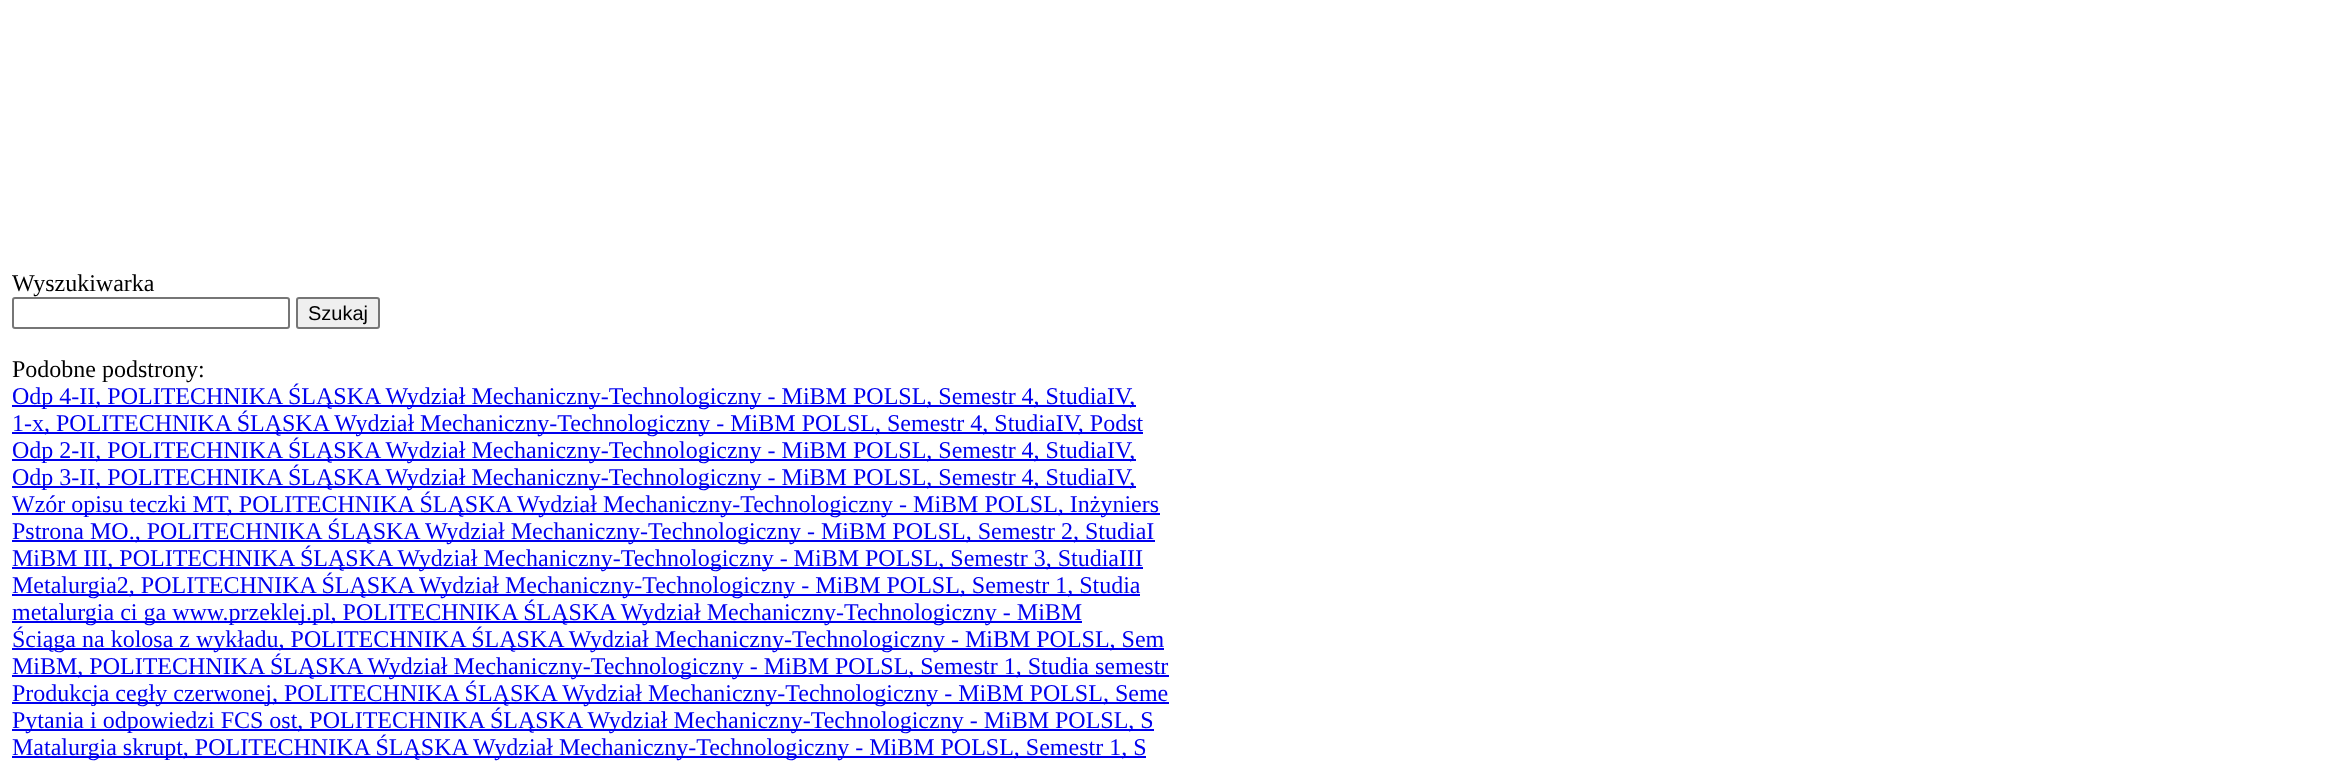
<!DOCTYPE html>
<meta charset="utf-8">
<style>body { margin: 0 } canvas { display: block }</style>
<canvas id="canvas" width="2336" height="768"></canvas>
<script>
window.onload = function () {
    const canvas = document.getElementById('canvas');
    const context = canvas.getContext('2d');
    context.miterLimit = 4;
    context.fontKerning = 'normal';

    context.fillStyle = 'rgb(255, 255, 255)';
    context.fillRect(0, 0, 2336, 768);
    context.beginPath();
    context.roundRect(13, 298, 276, 30, 2);
    context.strokeStyle = 'rgb(118, 118, 118)';
    context.lineWidth = 2;
    context.stroke();
    context.fillStyle = 'rgb(239, 239, 239)';
    context.beginPath();
    context.roundRect(297, 298, 82, 30, 2);
    context.fill();
    context.stroke();
    context.fillStyle = 'rgb(0, 0, 238)';
    context.fillRect(12, 405, 1124, 2);
    context.fillRect(12, 432, 1131, 2);
    context.fillRect(12, 459, 1124, 2);
    context.fillRect(12, 486, 1124, 2);
    context.fillRect(12, 513, 1148, 2);
    context.fillRect(12, 540, 1143, 2);
    context.fillRect(12, 567, 1131, 2);
    context.fillRect(12, 594, 1128, 2);
    context.fillRect(12, 621, 1070, 2);
    context.fillRect(12, 648, 1152, 2);
    context.fillRect(12, 675, 1157, 2);
    context.fillRect(12, 702, 1157, 2);
    context.fillRect(12, 729, 1142, 2);
    context.fillRect(12, 756, 1134, 2);
    context.font = '24px Liberation Serif';
    context.fillStyle = 'rgb(0, 0, 0)';
    context.fillText('Wyszukiwarka', 12, 291);
    context.font = '20px Liberation Sans';
    context.fillText('Szukaj', 308, 320);
    context.font = '24px Liberation Serif';
    context.fillText('Podobne podstrony:', 12, 377);
    context.fillStyle = 'rgb(0, 0, 238)';
    context.fillText('Odp 4-II, POLITECHNIKA ŚLĄSKA Wydział Mechaniczny-Technologiczny - MiBM POLSL, Semestr 4, StudiaIV,', 12, 404);
    context.fillText('1-x, POLITECHNIKA ŚLĄSKA Wydział Mechaniczny-Technologiczny - MiBM POLSL, Semestr 4, StudiaIV, Podst', 12, 431);
    context.fillText('Odp 2-II, POLITECHNIKA ŚLĄSKA Wydział Mechaniczny-Technologiczny - MiBM POLSL, Semestr 4, StudiaIV,', 12, 458);
    context.fillText('Odp 3-II, POLITECHNIKA ŚLĄSKA Wydział Mechaniczny-Technologiczny - MiBM POLSL, Semestr 4, StudiaIV,', 12, 485);
    context.fillText('Wzór opisu teczki MT, POLITECHNIKA ŚLĄSKA Wydział Mechaniczny-Technologiczny - MiBM POLSL, Inżyniers', 12, 512);
    context.fillText('Pstrona MO., POLITECHNIKA ŚLĄSKA Wydział Mechaniczny-Technologiczny - MiBM POLSL, Semestr 2, StudiaI', 12, 539);
    context.fillText('MiBM III, POLITECHNIKA ŚLĄSKA Wydział Mechaniczny-Technologiczny - MiBM POLSL, Semestr 3, StudiaIII', 12, 566);
    context.fillText('Metalurgia2, POLITECHNIKA ŚLĄSKA Wydział Mechaniczny-Technologiczny - MiBM POLSL, Semestr 1, Studia', 12, 593);
    context.fillText('metalurgia ci ga www.przeklej.pl, POLITECHNIKA ŚLĄSKA Wydział Mechaniczny-Technologiczny - MiBM', 12, 620);
    context.fillText('Ściąga na kolosa z wykładu, POLITECHNIKA ŚLĄSKA Wydział Mechaniczny-Technologiczny - MiBM POLSL, Sem', 12, 647);
    context.fillText('MiBM, POLITECHNIKA ŚLĄSKA Wydział Mechaniczny-Technologiczny - MiBM POLSL, Semestr 1, Studia semestr', 12, 674);
    context.fillText('Produkcja cegły czerwonej, POLITECHNIKA ŚLĄSKA Wydział Mechaniczny-Technologiczny - MiBM POLSL, Seme', 12, 701);
    context.fillText('Pytania i odpowiedzi FCS ost, POLITECHNIKA ŚLĄSKA Wydział Mechaniczny-Technologiczny - MiBM POLSL, S', 12, 728);
    context.fillText('Matalurgia skrupt, POLITECHNIKA ŚLĄSKA Wydział Mechaniczny-Technologiczny - MiBM POLSL, Semestr 1, S', 12, 755);
};
</script>
